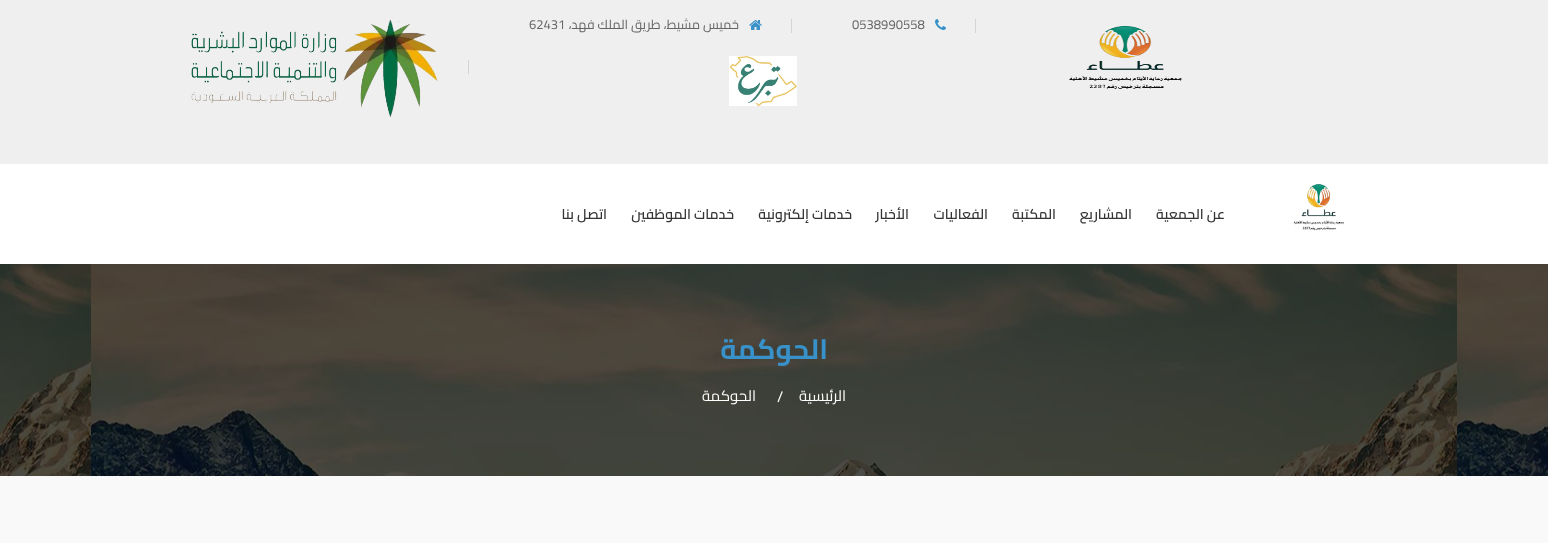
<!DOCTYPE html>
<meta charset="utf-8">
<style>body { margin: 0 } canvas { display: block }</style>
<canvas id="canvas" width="1548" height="543"></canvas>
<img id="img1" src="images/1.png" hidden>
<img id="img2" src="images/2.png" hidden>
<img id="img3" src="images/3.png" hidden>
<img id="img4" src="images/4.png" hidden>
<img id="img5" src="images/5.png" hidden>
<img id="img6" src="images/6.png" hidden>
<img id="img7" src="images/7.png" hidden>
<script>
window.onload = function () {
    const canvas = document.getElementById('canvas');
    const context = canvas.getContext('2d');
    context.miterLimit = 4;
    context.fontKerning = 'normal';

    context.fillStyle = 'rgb(255, 255, 255)';
    context.fillRect(0, 0, 1548, 543);
    context.fillStyle = 'rgb(239, 239, 239)';
    context.fillRect(0, 0, 1548, 164);
    context.fillStyle = 'rgb(216, 211, 211)';
    context.fillRect(975, 19, 1, 14);
    context.drawImage(document.getElementById('img1'), 935, 19, 11, 11);
    context.fillRect(791, 19, 1, 14);
    context.drawImage(document.getElementById('img2'), 749, 20, 13, 10);
    context.fillRect(468, 60, 1, 14);
    context.drawImage(document.getElementById('img3'), 191, 20, 247, 97);
    context.drawImage(document.getElementById('img4'), 1069, 26, 114, 64);
    context.drawImage(document.getElementById('img5'), 729, 56, 68, 50);
    context.drawImage(document.getElementById('img6'), 1293, 184, 52, 47);
    context.drawImage(document.getElementById('img7'), 0, 264, 1548, 212);
    context.fillStyle = 'rgb(249, 249, 249)';
    context.fillRect(0, 476, 1548, 67);
    context.font = '13px Cairo';
    context.fillStyle = 'rgb(101, 101, 101)';
    context.fillText('0538990558', 852, 29);
    context.direction = 'rtl';
    context.fillText('خميس مشيط، طريق الملك فهد،', 739, 29);
    context.direction = 'ltr';
    context.fillText('62431', 529, 29);
    context.direction = 'rtl';
    context.font = '600 14px Cairo';
    context.fillStyle = 'rgb(52, 52, 52)';
    context.fillText('عن الجمعية', 1225, 219);
    context.fillText('المشاريع', 1132, 219);
    context.fillText('المكتبة', 1056, 219);
    context.fillText('الفعاليات', 988, 219);
    context.fillText('الأخبار', 909, 219);
    context.fillText('خدمات إلكترونية', 852, 219);
    context.fillText('خدمات الموظفين', 734, 219);
    context.fillText('اتصل بنا', 607, 219);
    context.font = 'bold 28px Cairo';
    context.fillStyle = 'rgb(56, 145, 201)';
    context.fillText('الحوكمة', 828, 359);
    context.font = '15px Cairo';
    context.fillStyle = 'rgb(255, 255, 255)';
    context.fillText('الرئيسية', 846, 401);
    context.direction = 'ltr';
    context.fillText('/', 777, 402);
    context.direction = 'rtl';
    context.fillText('الحوكمة', 756, 401);
};
</script>
